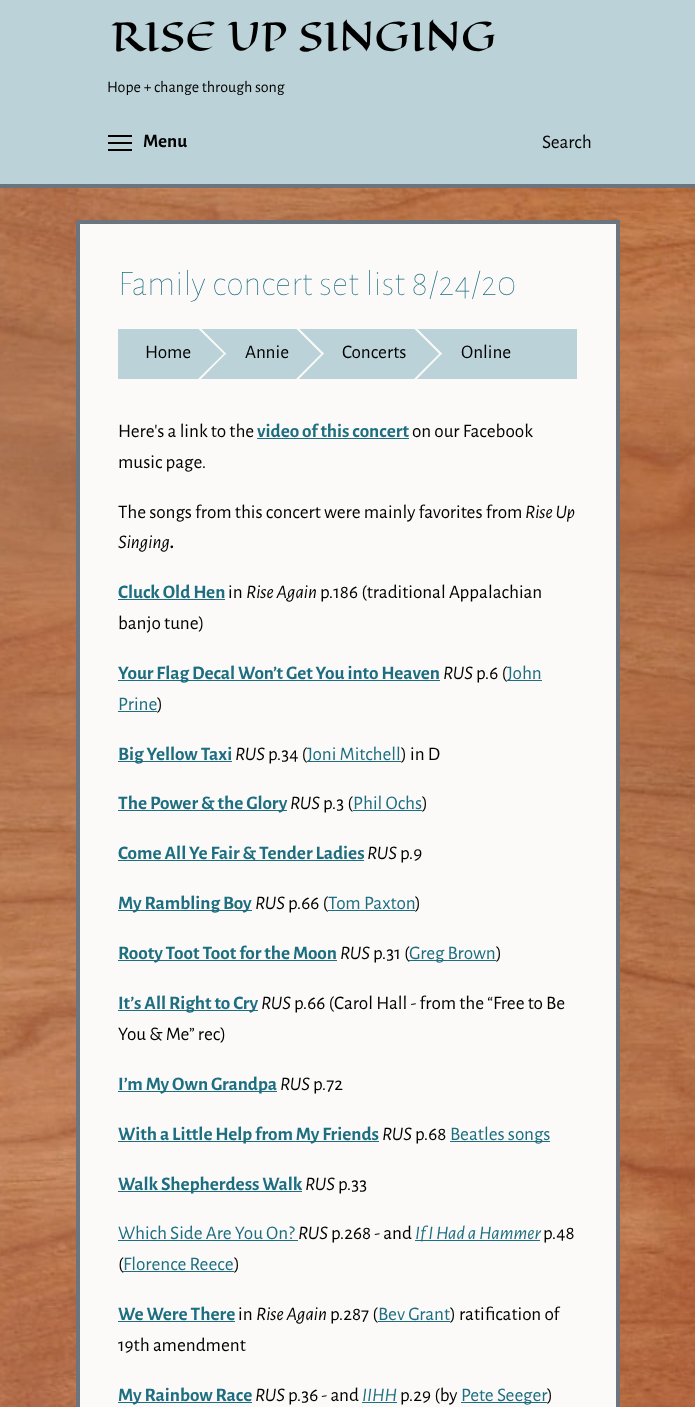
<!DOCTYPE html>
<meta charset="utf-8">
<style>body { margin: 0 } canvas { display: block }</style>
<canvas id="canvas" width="695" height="1407"></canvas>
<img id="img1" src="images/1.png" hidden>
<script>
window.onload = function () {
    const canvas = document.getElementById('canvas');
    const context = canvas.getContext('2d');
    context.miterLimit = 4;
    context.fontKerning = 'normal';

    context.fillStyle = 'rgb(255, 255, 255)';
    context.fillRect(0, 0, 695, 1407);
    context.drawImage(document.getElementById('img1'), 0, 188, 695, 1219);
    context.fillStyle = 'rgb(187, 211, 216)';
    context.fillRect(0, 0, 695, 184);
    context.fillStyle = 'rgb(108, 117, 125)';
    context.fillRect(0, 184, 695, 4);
    context.fillStyle = 'rgb(0, 0, 0)';
    context.fillRect(108, 142, 24, 2);
    context.fillRect(108, 135, 24, 2);
    context.fillRect(108, 149, 24, 2);
    context.fillStyle = 'rgb(251, 250, 249)';
    context.beginPath();
    context.rect(78, 222, 540, 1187);
    context.fill();
    context.strokeStyle = 'rgb(108, 117, 125)';
    context.lineWidth = 4;
    context.stroke();
    context.fillStyle = 'rgb(187, 211, 216)';
    context.fillRect(118, 329, 459, 50);
    context.save();
    context.beginPath();
    context.rect(118, 329, 459, 50);
    context.clip();
    context.fillStyle = 'rgb(251, 250, 249)';
    context.beginPath();
    context.moveTo(197.5, 325);
    context.lineTo(226, 353.5);
    context.lineTo(225, 355);
    context.lineTo(196, 326.5);
    context.closePath();
    context.fill();
    context.beginPath();
    context.moveTo(225, 352.5);
    context.lineTo(226, 353.5);
    context.lineTo(197.5, 382.5);
    context.lineTo(196, 381);
    context.closePath();
    context.fill();
    context.beginPath();
    context.moveTo(295.5, 325);
    context.lineTo(324, 353.5);
    context.lineTo(322.5, 355);
    context.lineTo(294, 326.5);
    context.closePath();
    context.fill();
    context.beginPath();
    context.moveTo(322.5, 352.5);
    context.lineTo(324, 353.5);
    context.lineTo(295.5, 382.5);
    context.lineTo(294, 381);
    context.closePath();
    context.fill();
    context.beginPath();
    context.moveTo(413.5, 325);
    context.lineTo(442, 353.5);
    context.lineTo(440.5, 355);
    context.lineTo(412, 326.5);
    context.closePath();
    context.fill();
    context.beginPath();
    context.moveTo(440.5, 352.5);
    context.lineTo(442, 353.5);
    context.lineTo(413.5, 382.5);
    context.lineTo(412, 381);
    context.closePath();
    context.fill();
    context.restore();
    context.fillStyle = 'rgb(29, 110, 128)';
    context.fillRect(257, 438, 152, 1);
    context.fillRect(118, 599, 107, 1);
    context.fillRect(118, 680, 322, 1);
    context.fillRect(507, 680, 35, 1);
    context.fillRect(118, 711, 39, 1);
    context.fillRect(118, 761, 114, 1);
    context.fillRect(118, 810, 169, 1);
    context.fillRect(118, 860, 246, 1);
    context.fillRect(118, 910, 134, 1);
    context.fillRect(328, 910, 87, 1);
    context.fillRect(118, 960, 219, 1);
    context.fillRect(118, 1010, 140, 1);
    context.fillRect(118, 1091, 159, 1);
    context.fillRect(118, 1141, 261, 1);
    context.fillRect(450, 1141, 100, 1);
    context.fillRect(118, 1191, 184, 1);
    context.fillRect(118, 1240, 180, 1);
    context.fillRect(415, 1240, 125, 1);
    context.fillRect(118, 1321, 117, 1);
    context.fillRect(378, 1321, 72, 1);
    context.fillRect(118, 1402, 134, 1);
    context.fillRect(362, 1402, 35, 1);
    context.fillRect(461, 1402, 86, 1);
    context.font = '38.5px Eagle Lake';
    context.fillStyle = 'rgb(0, 0, 0)';
    context.fillText('RISE UP SINGING', 111, 50);
    context.font = '16px Alegreya Sans';
    context.fillText('Hope + change through song', 107, 92);
    context.font = '19.2px Alegreya Sans';
    context.fillText('Search', 542, 148);
    context.font = 'bold 19.2px Alegreya Sans';
    context.fillText('Menu', 143, 147);
    context.font = '200 36px Alegreya Sans';
    context.fillStyle = 'rgb(29, 110, 128)';
    context.fillText('Family concert set list 8/24/20', 118, 295);
    context.font = '19.2px Alegreya Sans';
    context.fillStyle = 'rgb(0, 0, 0)';
    context.fillText('Home', 145, 358);
    context.fillText('Annie', 245, 358);
    context.fillText('Concerts', 342, 358);
    context.fillText('Online', 461, 358);
    context.fillText('Here\'s a link to the', 118, 437);
    context.font = 'bold 19.2px Alegreya Sans';
    context.fillStyle = 'rgb(29, 110, 128)';
    context.fillText('video of this concert', 257, 437);
    context.font = '19.2px Alegreya Sans';
    context.fillStyle = 'rgb(0, 0, 0)';
    context.fillText('on our Facebook', 412, 437);
    context.fillText('music page.', 118, 468);
    context.fillText('The songs from this concert were mainly favorites from', 118, 518);
    context.font = 'italic 19.2px Alegreya Sans';
    context.fillText('Rise Up', 525, 518);
    context.fillText('Singing', 118, 548);
    context.font = 'italic bold 19.2px Alegreya Sans';
    context.fillText('.', 170, 548);
    context.font = 'bold 19.2px Alegreya Sans';
    context.fillStyle = 'rgb(29, 110, 128)';
    context.fillText('Cluck Old Hen', 118, 598);
    context.font = '19.2px Alegreya Sans';
    context.fillStyle = 'rgb(0, 0, 0)';
    context.fillText('in', 228, 598);
    context.font = 'italic 19.2px Alegreya Sans';
    context.fillText('Rise Again', 246, 598);
    context.font = '19.2px Alegreya Sans';
    context.fillText('p.186 (traditional Appalachian', 320, 598);
    context.fillText('banjo tune)', 118, 629);
    context.font = 'bold 19.2px Alegreya Sans';
    context.fillStyle = 'rgb(29, 110, 128)';
    context.fillText('Your Flag Decal Won’t Get You into Heaven', 118, 679);
    context.font = 'italic 19.2px Alegreya Sans';
    context.fillStyle = 'rgb(0, 0, 0)';
    context.fillText('RUS', 443, 679);
    context.font = '19.2px Alegreya Sans';
    context.fillText('p.6 (', 476, 679);
    context.fillStyle = 'rgb(29, 110, 128)';
    context.fillText('John', 507, 679);
    context.fillText('Prine', 118, 710);
    context.fillStyle = 'rgb(0, 0, 0)';
    context.fillText(')', 157, 710);
    context.font = 'bold 19.2px Alegreya Sans';
    context.fillStyle = 'rgb(29, 110, 128)';
    context.fillText('Big Yellow Taxi', 118, 760);
    context.font = 'italic 19.2px Alegreya Sans';
    context.fillStyle = 'rgb(0, 0, 0)';
    context.fillText('RUS', 235, 760);
    context.font = '19.2px Alegreya Sans';
    context.fillText('p.34 (', 268, 760);
    context.fillStyle = 'rgb(29, 110, 128)';
    context.fillRect(307, 761, 94, 1);
    context.fillText('Joni Mitchell', 307, 760);
    context.fillStyle = 'rgb(0, 0, 0)';
    context.fillText(') in D', 401, 760);
    context.font = 'bold 19.2px Alegreya Sans';
    context.fillStyle = 'rgb(29, 110, 128)';
    context.fillText('The Power & the Glory', 118, 809);
    context.font = 'italic 19.2px Alegreya Sans';
    context.fillStyle = 'rgb(0, 0, 0)';
    context.fillText('RUS', 290, 809);
    context.font = '19.2px Alegreya Sans';
    context.fillText('p.3 (', 323, 809);
    context.fillStyle = 'rgb(29, 110, 128)';
    context.fillText('Phil Ochs', 353, 809);
    context.fillRect(353, 810, 69, 1);
    context.fillStyle = 'rgb(0, 0, 0)';
    context.fillText(')', 422, 809);
    context.font = 'bold 19.2px Alegreya Sans';
    context.fillStyle = 'rgb(29, 110, 128)';
    context.fillText('Come All Ye Fair & Tender Ladies', 118, 859);
    context.font = 'italic 19.2px Alegreya Sans';
    context.fillStyle = 'rgb(0, 0, 0)';
    context.fillText('RUS', 367, 859);
    context.font = '19.2px Alegreya Sans';
    context.fillText('p.9', 400, 859);
    context.font = 'bold 19.2px Alegreya Sans';
    context.fillStyle = 'rgb(29, 110, 128)';
    context.fillText('My Rambling Boy', 118, 909);
    context.font = 'italic 19.2px Alegreya Sans';
    context.fillStyle = 'rgb(0, 0, 0)';
    context.fillText('RUS', 255, 909);
    context.font = '19.2px Alegreya Sans';
    context.fillText('p.66 (', 288, 909);
    context.fillStyle = 'rgb(29, 110, 128)';
    context.fillText('Tom Paxton', 328, 909);
    context.fillStyle = 'rgb(0, 0, 0)';
    context.fillText(')', 415, 909);
    context.font = 'bold 19.2px Alegreya Sans';
    context.fillStyle = 'rgb(29, 110, 128)';
    context.fillText('Rooty Toot Toot for the Moon', 118, 959);
    context.font = 'italic 19.2px Alegreya Sans';
    context.fillStyle = 'rgb(0, 0, 0)';
    context.fillText('RUS', 340, 959);
    context.font = '19.2px Alegreya Sans';
    context.fillText('p.31 (', 373, 959);
    context.fillStyle = 'rgb(29, 110, 128)';
    context.fillRect(409, 960, 87, 1);
    context.fillText('Greg Brown', 409, 959);
    context.fillStyle = 'rgb(0, 0, 0)';
    context.fillText(')', 496, 959);
    context.font = 'bold 19.2px Alegreya Sans';
    context.fillStyle = 'rgb(29, 110, 128)';
    context.fillText('It’s All Right to Cry', 118, 1009);
    context.font = 'italic 19.2px Alegreya Sans';
    context.fillStyle = 'rgb(0, 0, 0)';
    context.fillText('RUS', 261, 1009);
    context.font = '19.2px Alegreya Sans';
    context.fillText('p.66 (Carol Hall - from the “Free to Be', 294, 1009);
    context.fillText('You & Me” rec)', 118, 1040);
    context.font = 'bold 19.2px Alegreya Sans';
    context.fillStyle = 'rgb(29, 110, 128)';
    context.fillText('I’m My Own Grandpa', 118, 1090);
    context.font = 'italic 19.2px Alegreya Sans';
    context.fillStyle = 'rgb(0, 0, 0)';
    context.fillText('RUS', 280, 1090);
    context.font = '19.2px Alegreya Sans';
    context.fillText('p.72', 313, 1090);
    context.font = 'bold 19.2px Alegreya Sans';
    context.fillStyle = 'rgb(29, 110, 128)';
    context.fillText('With a Little Help from My Friends', 118, 1140);
    context.font = 'italic 19.2px Alegreya Sans';
    context.fillStyle = 'rgb(0, 0, 0)';
    context.fillText('RUS', 382, 1140);
    context.font = '19.2px Alegreya Sans';
    context.fillText('p.68', 415, 1140);
    context.fillStyle = 'rgb(29, 110, 128)';
    context.fillText('Beatles songs', 450, 1140);
    context.font = 'bold 19.2px Alegreya Sans';
    context.fillText('Walk Shepherdess Walk', 118, 1190);
    context.font = 'italic 19.2px Alegreya Sans';
    context.fillStyle = 'rgb(0, 0, 0)';
    context.fillText('RUS', 305, 1190);
    context.font = '19.2px Alegreya Sans';
    context.fillText('p.33', 338, 1190);
    context.fillStyle = 'rgb(29, 110, 128)';
    context.fillText('Which Side Are You On?', 118, 1239);
    context.font = 'italic 19.2px Alegreya Sans';
    context.fillStyle = 'rgb(0, 0, 0)';
    context.fillText('RUS', 298, 1239);
    context.font = '19.2px Alegreya Sans';
    context.fillText('p.268 - and', 331, 1239);
    context.font = 'italic 19.2px Alegreya Sans';
    context.fillStyle = 'rgb(29, 110, 128)';
    context.fillText('If I Had a Hammer', 415, 1239);
    context.font = '19.2px Alegreya Sans';
    context.fillStyle = 'rgb(0, 0, 0)';
    context.fillText('p.48', 543, 1239);
    context.fillText('(', 118, 1270);
    context.fillStyle = 'rgb(29, 110, 128)';
    context.fillText('Florence Reece', 123, 1270);
    context.fillRect(123, 1271, 111, 1);
    context.fillStyle = 'rgb(0, 0, 0)';
    context.fillText(')', 234, 1270);
    context.font = 'bold 19.2px Alegreya Sans';
    context.fillStyle = 'rgb(29, 110, 128)';
    context.fillText('We Were There', 118, 1320);
    context.font = '19.2px Alegreya Sans';
    context.fillStyle = 'rgb(0, 0, 0)';
    context.fillText('in', 238, 1320);
    context.font = 'italic 19.2px Alegreya Sans';
    context.fillText('Rise Again', 256, 1320);
    context.font = '19.2px Alegreya Sans';
    context.fillText('p.287 (', 330, 1320);
    context.fillStyle = 'rgb(29, 110, 128)';
    context.fillText('Bev Grant', 378, 1320);
    context.fillStyle = 'rgb(0, 0, 0)';
    context.fillText(') ratification of', 450, 1320);
    context.fillText('19th amendment', 118, 1351);
    context.font = 'bold 19.2px Alegreya Sans';
    context.fillStyle = 'rgb(29, 110, 128)';
    context.fillText('My Rainbow Race', 118, 1401);
    context.font = 'italic 19.2px Alegreya Sans';
    context.fillStyle = 'rgb(0, 0, 0)';
    context.fillText('RUS', 255, 1401);
    context.font = '19.2px Alegreya Sans';
    context.fillText('p.36 - and', 288, 1401);
    context.font = 'italic 19.2px Alegreya Sans';
    context.fillStyle = 'rgb(29, 110, 128)';
    context.fillText('IIHH', 362, 1401);
    context.font = '19.2px Alegreya Sans';
    context.fillStyle = 'rgb(0, 0, 0)';
    context.fillText('p.29 (by', 400, 1401);
    context.fillStyle = 'rgb(29, 110, 128)';
    context.fillText('Pete Seeger', 461, 1401);
    context.fillStyle = 'rgb(0, 0, 0)';
    context.fillText(')', 547, 1401);
};
</script>
